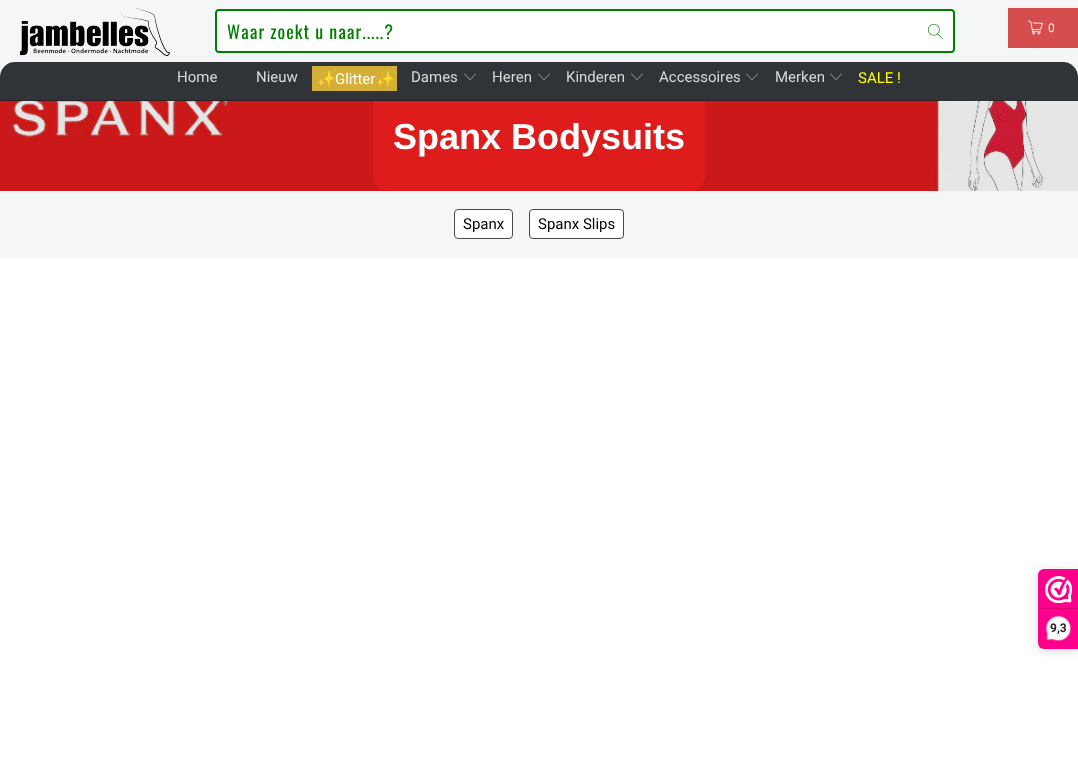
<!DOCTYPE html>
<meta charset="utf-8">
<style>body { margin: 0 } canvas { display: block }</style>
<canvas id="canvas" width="1078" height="759"></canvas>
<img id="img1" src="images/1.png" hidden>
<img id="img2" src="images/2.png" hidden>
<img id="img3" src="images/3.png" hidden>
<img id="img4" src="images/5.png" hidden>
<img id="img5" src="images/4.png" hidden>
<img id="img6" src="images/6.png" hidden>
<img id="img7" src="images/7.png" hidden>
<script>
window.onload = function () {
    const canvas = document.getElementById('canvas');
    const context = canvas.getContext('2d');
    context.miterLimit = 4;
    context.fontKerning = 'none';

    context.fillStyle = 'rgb(255, 255, 255)';
    context.fillRect(0, 0, 1078, 759);
    context.fillStyle = 'rgb(244, 246, 248)';
    context.fillRect(0, 0, 1078, 100);
    context.drawImage(document.getElementById('img1'), 20, 8, 150, 48);
    context.fillStyle = 'rgb(255, 255, 255)';
    context.fillRect(215, 9, 740, 44);
    context.beginPath();
    context.roundRect(216, 10, 738, 42, 3);
    context.strokeStyle = 'rgb(0, 128, 0)';
    context.lineWidth = 2;
    context.stroke();
    context.drawImage(document.getElementById('img2'), 928, 23, 15, 16);
    context.fillStyle = 'rgb(213, 77, 77)';
    context.fillRect(1008, 8, 70, 40);
    context.drawImage(document.getElementById('img3'), 1028, 20, 15, 15);
    context.drawImage(document.getElementById('img4'), 0, 100, 1078, 91);
    context.fillStyle = 'rgb(222, 28, 28)';
    context.beginPath();
    context.roundRect(373, 100, 332, 91, [0, 0, 15, 15]);
    context.fill();
    context.fillStyle = 'rgba(27, 31, 35, 0.9)';
    context.beginPath();
    context.roundRect(0, 62, 1078, 39, [15, 15, 0, 0]);
    context.fill();
    context.fillStyle = 'rgb(212, 175, 55)';
    context.fillRect(312, 66, 85, 25);
    context.drawImage(document.getElementById('img5'), 464, 73, 12, 7);
    context.drawImage(document.getElementById('img5'), 538, 73, 12, 7);
    context.drawImage(document.getElementById('img5'), 631, 73, 12, 7);
    context.drawImage(document.getElementById('img5'), 746, 73, 12, 7);
    context.drawImage(document.getElementById('img5'), 830, 73, 12, 7);
    context.fillStyle = 'rgb(244, 246, 248)';
    context.fillRect(0, 191, 1078, 67);
    context.fillStyle = 'rgb(255, 255, 255)';
    context.beginPath();
    context.roundRect(454.5, 209.5, 58, 29, 3.5);
    context.fill();
    context.strokeStyle = 'rgb(72, 72, 72)';
    context.lineWidth = 1;
    context.stroke();
    context.beginPath();
    context.roundRect(529.5, 209.5, 94, 29, 3.5);
    context.fill();
    context.stroke();
    context.fillStyle = 'rgba(0, 0, 0, 0.15)';
    context.filter = 'blur(5px)';
    context.beginPath();
    context.roundRect(1038, 571, 40, 80, 6);
    context.fill();
    context.filter = 'none';
    context.fillStyle = 'rgb(254, 0, 140)';
    context.beginPath();
    context.roundRect(1038, 569, 40, 80, [6, 0, 0, 6]);
    context.fill();
    context.drawImage(document.getElementById('img6'), 1045, 576, 27, 27);
    context.fillStyle = 'rgb(216, 0, 119)';
    context.fillRect(1039, 608, 39, 1);
    context.drawImage(document.getElementById('img7'), 1045, 615, 26, 26);
    context.letterSpacing = '1px';
    context.font = '18px Oswald';
    context.fillStyle = 'rgb(0, 128, 0)';
    context.fillText('Waar zoekt u naar.....?', 227, 39);
    context.font = '12px Roboto';
    context.fillStyle = 'rgb(244, 244, 244)';
    context.fillText('0', 1048, 32);
    context.letterSpacing = '0px';
    context.font = '15px Roboto';
    context.fillStyle = 'rgb(217, 217, 217)';
    context.fillText('Home', 177, 82);
    context.fillText('Nieuw', 256, 82);
    context.font = '15px Noto Color Emoji';
    context.fillStyle = 'rgb(255, 255, 255)';
    context.fillText('✨', 317, 84);
    context.font = '15px Roboto';
    context.fillText('Glitter', 335, 84);
    context.font = '15px Noto Color Emoji';
    context.fillText('✨', 376, 84);
    context.font = '15px Roboto';
    context.fillStyle = 'rgb(217, 217, 217)';
    context.fillText('Dames', 411, 82);
    context.fillText('Heren', 492, 82);
    context.fillText('Kinderen', 566, 82);
    context.fillText('Accessoires', 659, 82);
    context.fillText('Merken', 775, 82);
    context.fillStyle = 'rgb(255, 255, 0)';
    context.fillText('SALE !', 858, 83);
    context.font = 'bold 36px Liberation Sans';
    context.fillStyle = 'rgb(255, 255, 255)';
    context.fillText('Spanx Bodysuits', 393, 149);
    context.font = '15px Roboto';
    context.fillStyle = 'rgb(0, 0, 0)';
    context.fillText('Spanx', 463, 229);
    context.fillText('Spanx Slips', 538, 229);
    context.font = 'bold 12px Roboto';
    context.fillStyle = 'rgb(39, 38, 38)';
    context.fillText('9,3', 1050, 632);
};
</script>
